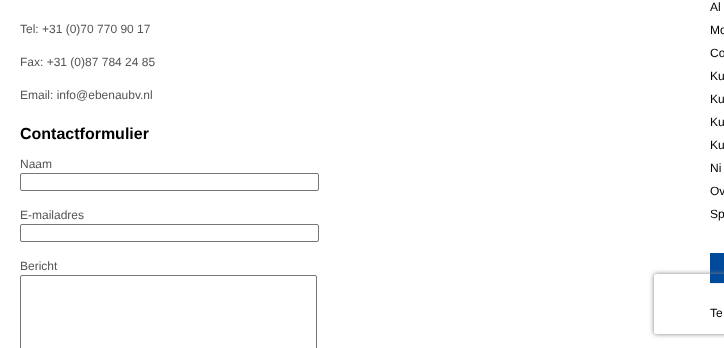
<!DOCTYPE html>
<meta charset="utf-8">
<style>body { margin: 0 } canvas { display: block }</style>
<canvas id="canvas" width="724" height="348"></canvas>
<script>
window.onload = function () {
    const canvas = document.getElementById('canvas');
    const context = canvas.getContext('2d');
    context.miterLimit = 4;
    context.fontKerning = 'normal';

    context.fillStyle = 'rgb(255, 255, 255)';
    context.fillRect(0, 0, 724, 348);
    context.beginPath();
    context.roundRect(20.5, 173.5, 298, 17, 1.5);
    context.strokeStyle = 'rgb(118, 118, 118)';
    context.stroke();
    context.beginPath();
    context.roundRect(20.5, 224.5, 298, 17, 1.5);
    context.stroke();
    context.beginPath();
    context.roundRect(20.5, 275.5, 296, 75, 1.5);
    context.stroke();
    context.fillStyle = 'rgb(0, 74, 156)';
    context.fillRect(710, 253, 14, 30);
    context.fillStyle = 'rgb(238, 238, 238)';
    context.fillRect(710, 283, 14, 1);
    context.save();
    context.beginPath();
    context.moveTo(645, 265);
    context.lineTo(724, 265);
    context.lineTo(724, 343);
    context.lineTo(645, 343);
    context.closePath();
    context.moveTo(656, 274);
    context.lineTo(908, 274);
    context.bezierCurveTo(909, 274, 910, 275, 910, 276);
    context.lineTo(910, 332);
    context.bezierCurveTo(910, 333, 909, 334, 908, 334);
    context.lineTo(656, 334);
    context.bezierCurveTo(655, 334, 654, 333, 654, 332);
    context.lineTo(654, 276);
    context.bezierCurveTo(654, 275, 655, 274, 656, 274);
    context.closePath();
    context.clip('evenodd');
    context.fillStyle = 'rgb(128, 128, 128)';
    context.filter = 'blur(2.5px)';
    context.beginPath();
    context.roundRect(654, 274, 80, 60, 2);
    context.fill();
    context.filter = 'none';
    context.restore();
    context.font = '12px Liberation Sans';
    context.fillStyle = 'rgb(85, 85, 85)';
    context.fillText('Tel: +31 (0)70 770 90 17', 20, 33);
    context.fillText('Fax: +31 (0)87 784 24 85', 20, 66);
    context.fillText('Email: info@ebenaubv.nl', 20, 99);
    context.font = 'bold 16px Liberation Sans';
    context.fillStyle = 'rgb(0, 0, 0)';
    context.fillText('Contactformulier', 20, 139);
    context.font = '12px Liberation Sans';
    context.fillStyle = 'rgb(85, 85, 85)';
    context.fillText('Naam', 20, 168);
    context.fillText('E-mailadres', 20, 219);
    context.fillText('Bericht', 20, 270);
    context.fillStyle = 'rgb(0, 0, 0)';
    context.fillText('Al', 710, 11);
    context.fillText('Mo', 710, 34);
    context.fillText('Co', 710, 57);
    context.fillText('Ku', 710, 80);
    context.fillText('Ku', 710, 103);
    context.fillText('Ku', 710, 126);
    context.fillText('Ku', 710, 149);
    context.fillText('Ni', 710, 172);
    context.fillText('Ov', 710, 195);
    context.fillText('Sp', 710, 218);
    context.fillText('Te', 710, 317);
};
</script>
